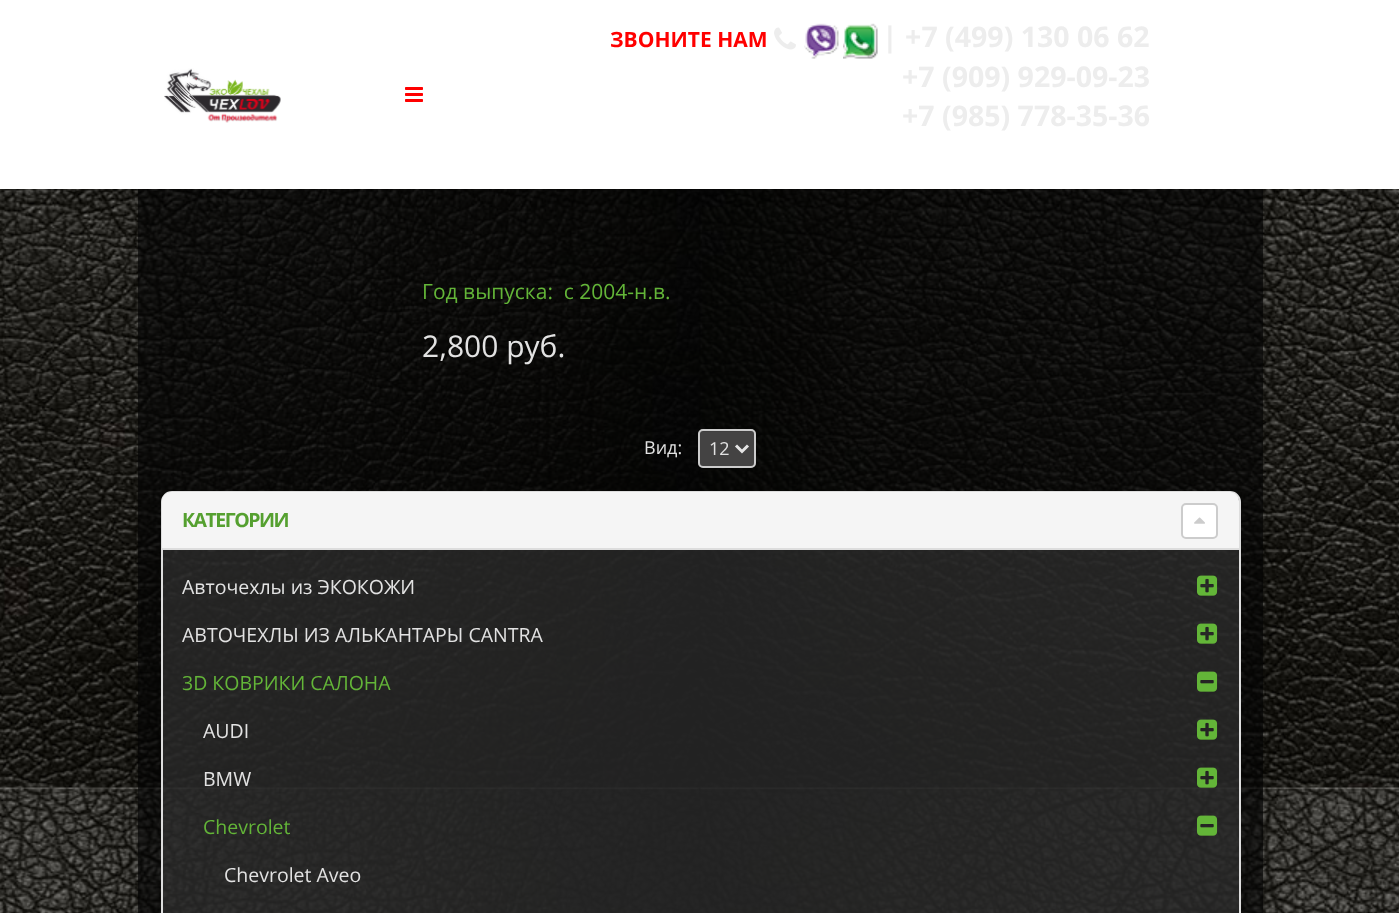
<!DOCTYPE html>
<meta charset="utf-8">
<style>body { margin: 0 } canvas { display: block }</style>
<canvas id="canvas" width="1399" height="913"></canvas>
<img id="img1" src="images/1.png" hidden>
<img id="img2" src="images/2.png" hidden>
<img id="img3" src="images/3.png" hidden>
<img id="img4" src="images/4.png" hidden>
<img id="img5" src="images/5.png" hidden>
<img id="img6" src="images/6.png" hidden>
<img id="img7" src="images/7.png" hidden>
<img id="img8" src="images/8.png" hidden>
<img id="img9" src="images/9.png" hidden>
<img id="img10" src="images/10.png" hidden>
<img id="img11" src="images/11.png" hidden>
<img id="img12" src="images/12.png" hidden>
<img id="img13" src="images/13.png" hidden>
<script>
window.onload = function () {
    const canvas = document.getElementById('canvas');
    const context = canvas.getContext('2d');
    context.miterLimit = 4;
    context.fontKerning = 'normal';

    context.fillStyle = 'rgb(255, 255, 255)';
    context.fillRect(0, 0, 1399, 913);
    context.drawImage(document.getElementById('img1'), 0, 189, 1399, 724);
    context.fillStyle = 'rgba(4, 4, 4, 0.67)';
    context.fillRect(138, 189, 1125, 724);
    context.fillStyle = 'rgba(0, 0, 0, 0.2)';
    context.filter = 'blur(7.5px)';
    context.beginPath();
    context.rect(0, 2, 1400, 189);
    context.fill();
    context.filter = 'none';
    context.fillStyle = 'rgb(255, 255, 255)';
    context.fillRect(0, 0, 1399, 189);
    context.drawImage(document.getElementById('img2'), 164, 68, 117, 55);
    context.drawImage(document.getElementById('img3'), 405, 87, 18, 15);
    context.drawImage(document.getElementById('img4'), 774, 27, 22, 23);
    context.drawImage(document.getElementById('img5'), 804, 23, 35, 36);
    context.drawImage(document.getElementById('img6'), 843, 23, 35, 36);
    context.fillStyle = 'rgb(68, 67, 67)';
    context.beginPath();
    context.roundRect(698, 429, 58, 39, 5);
    context.fill();
    context.fillStyle = 'rgb(63, 62, 62)';
    context.beginPath();
    context.moveTo(702, 432);
    context.lineTo(735, 432);
    context.bezierCurveTo(756, 432, 754, 427, 754, 445);
    context.lineTo(754, 466);
    context.bezierCurveTo(755, 466, 755, 465, 755, 464);
    context.lineTo(755, 434);
    context.bezierCurveTo(755, 432, 754, 431, 752, 431);
    context.lineTo(702, 431);
    context.bezierCurveTo(700, 431, 699, 432, 699, 434);
    context.lineTo(699, 435);
    context.bezierCurveTo(699, 433, 700, 432, 702, 432);
    context.closePath();
    context.fill();
    context.beginPath();
    context.roundRect(699, 430, 56, 37, 4);
    context.strokeStyle = 'rgb(204, 204, 204)';
    context.lineWidth = 2;
    context.stroke();
    context.beginPath();
    context.moveTo(736, 445.5);
    context.lineTo(742, 451.5);
    context.lineTo(748, 445.5);
    context.strokeStyle = 'rgb(229, 229, 229)';
    context.lineWidth = 3;
    context.stroke();
    context.fillStyle = 'rgba(60, 60, 60, 0.55)';
    context.beginPath();
    context.roundRect(162, 492, 1078, 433, 10);
    context.fill();
    context.strokeStyle = 'rgb(221, 221, 221)';
    context.lineWidth = 2;
    context.stroke();
    context.fillStyle = 'rgb(245, 245, 245)';
    context.beginPath();
    context.roundRect(162, 492, 1077, 57, [9, 9, 0, 0]);
    context.fill();
    context.fillStyle = 'rgb(221, 221, 221)';
    context.fillRect(162, 548, 1077, 2);
    context.fillStyle = 'rgb(255, 255, 255)';
    context.beginPath();
    context.roundRect(1182, 504, 35, 34, 4);
    context.fill();
    context.strokeStyle = 'rgb(204, 204, 204)';
    context.stroke();
    context.drawImage(document.getElementById('img7'), 1194, 517, 11, 7);
    context.drawImage(document.getElementById('img8'), 1197, 575, 21, 21);
    context.drawImage(document.getElementById('img9'), 1197, 623, 21, 21);
    context.drawImage(document.getElementById('img10'), 1197, 671, 21, 21);
    context.drawImage(document.getElementById('img11'), 1197, 719, 21, 21);
    context.drawImage(document.getElementById('img12'), 1197, 767, 21, 21);
    context.drawImage(document.getElementById('img13'), 1197, 815, 21, 21);
    context.font = 'bold 21px Open Sans';
    context.fillStyle = 'rgb(255, 0, 0)';
    context.fillText('ЗВОНИТЕ НАМ', 610, 47);
    context.font = 'bold 28.5px Open Sans';
    context.fillStyle = 'rgb(237, 237, 237)';
    context.fillText('| +7 (499) 130 06 62', 882, 47);
    context.fillText('+7 (909) 929-09-23', 902, 87);
    context.fillText('+7 (985) 778-35-36', 902, 126);
    context.font = '21px Open Sans';
    context.fillStyle = 'rgb(99, 181, 56)';
    context.fillText('Год выпуска:  с 2004-н.в.', 422, 299);
    context.font = '30px Open Sans';
    context.fillStyle = 'rgb(226, 226, 226)';
    context.fillText('2,800 руб.', 422, 357);
    context.font = '18px Open Sans';
    context.fillText('Вид:', 644, 454);
    context.fillText('12', 709, 455);
    context.letterSpacing = '-1.5px';
    context.font = 'bold 19.5px Open Sans';
    context.fillStyle = 'rgb(85, 160, 48)';
    context.fillText('КАТЕГОРИИ', 182, 527);
    context.letterSpacing = '0px';
    context.font = '19.5px Open Sans';
    context.fillStyle = 'rgb(226, 226, 226)';
    context.fillText('Авточехлы из ЭКОКОЖИ', 182, 594);
    context.fillText('АВТОЧЕХЛЫ ИЗ АЛЬКАНТАРЫ CANTRA', 182, 642);
    context.fillStyle = 'rgb(99, 181, 56)';
    context.fillText('3D КОВРИКИ САЛОНА', 182, 690);
    context.fillStyle = 'rgb(226, 226, 226)';
    context.fillText('AUDI', 203, 738);
    context.fillText('BMW', 203, 786);
    context.fillStyle = 'rgb(99, 181, 56)';
    context.fillText('Chevrolet', 203, 834);
    context.fillStyle = 'rgb(226, 226, 226)';
    context.fillText('Chevrolet Aveo', 224, 882);
};
</script>
